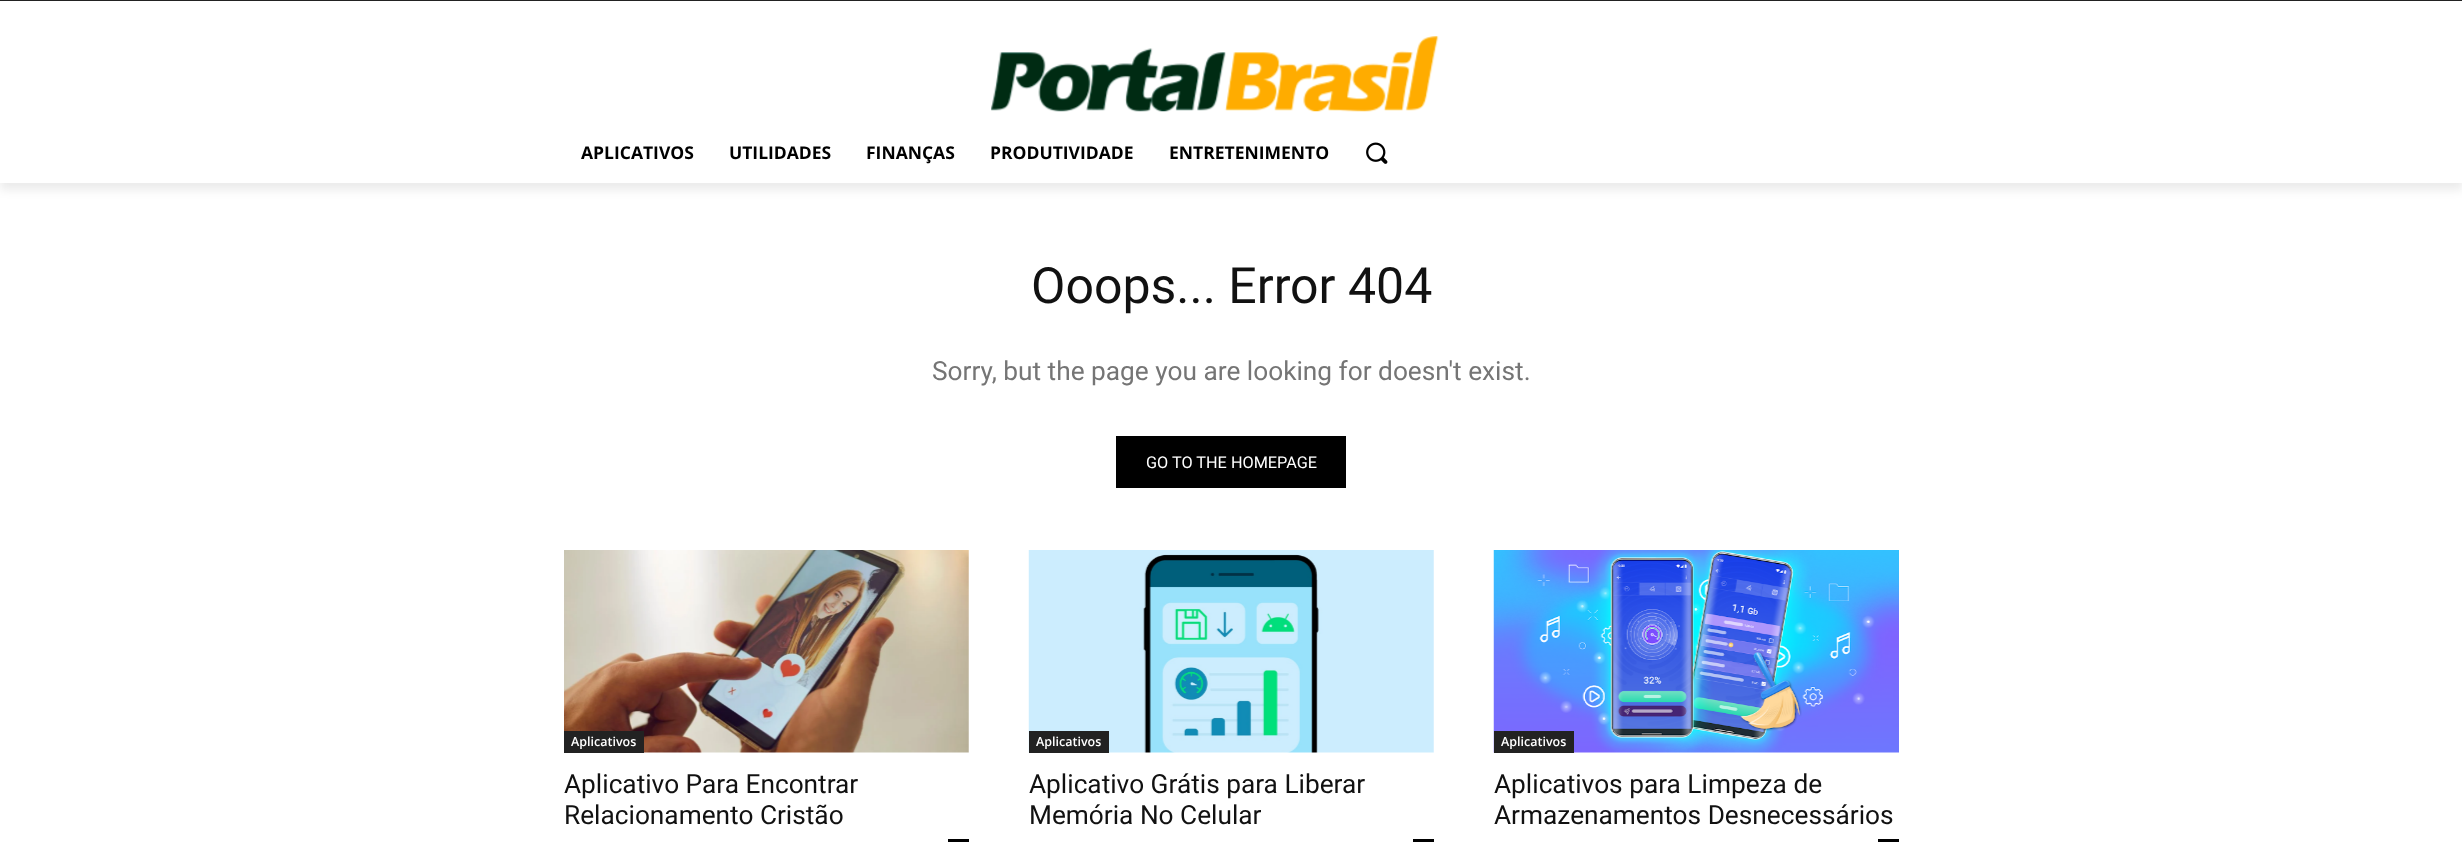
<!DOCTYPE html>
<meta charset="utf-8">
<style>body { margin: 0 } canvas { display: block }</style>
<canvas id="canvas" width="2462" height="842"></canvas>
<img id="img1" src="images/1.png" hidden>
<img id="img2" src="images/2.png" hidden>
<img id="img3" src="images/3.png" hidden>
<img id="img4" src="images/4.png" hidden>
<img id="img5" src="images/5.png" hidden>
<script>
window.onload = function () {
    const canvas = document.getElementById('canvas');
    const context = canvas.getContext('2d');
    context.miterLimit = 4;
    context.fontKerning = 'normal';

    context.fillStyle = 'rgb(255, 255, 255)';
    context.fillRect(0, 0, 2462, 842);
    context.fillStyle = 'rgb(34, 34, 34)';
    context.fillRect(0, 0, 2462, 1);
    context.drawImage(document.getElementById('img1'), 991, 36, 448, 76);
    context.save();
    context.beginPath();
    context.moveTo(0, 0);
    context.lineTo(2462, 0);
    context.lineTo(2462, 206);
    context.lineTo(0, 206);
    context.closePath();
    context.moveTo(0, 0);
    context.lineTo(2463, 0);
    context.lineTo(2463, 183);
    context.lineTo(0, 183);
    context.closePath();
    context.clip('evenodd');
    context.fillStyle = 'rgba(0, 0, 0, 0.08)';
    context.filter = 'blur(5px)';
    context.beginPath();
    context.rect(0, 8, 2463, 182);
    context.fill();
    context.filter = 'none';
    context.restore();
    context.drawImage(document.getElementById('img2'), 1366, 142, 22, 22);
    context.fillStyle = 'rgb(0, 0, 0)';
    context.fillRect(1116, 436, 230, 52);
    context.drawImage(document.getElementById('img3'), 564, 550, 405, 203);
    context.fillStyle = 'rgb(34, 34, 34)';
    context.fillRect(564, 731, 80, 22);
    context.fillStyle = 'rgb(0, 0, 0)';
    context.fillRect(948, 839, 21, 3);
    context.drawImage(document.getElementById('img4'), 1028, 550, 406, 203);
    context.fillStyle = 'rgb(34, 34, 34)';
    context.fillRect(1029, 731, 80, 22);
    context.fillStyle = 'rgb(0, 0, 0)';
    context.fillRect(1413, 839, 21, 3);
    context.drawImage(document.getElementById('img5'), 1493, 550, 406, 203);
    context.fillStyle = 'rgb(34, 34, 34)';
    context.fillRect(1494, 731, 80, 22);
    context.fillStyle = 'rgb(0, 0, 0)';
    context.fillRect(1878, 839, 21, 3);
    context.font = 'bold 17.5px Open Sans';
    context.fillText('APLICATIVOS', 581, 159);
    context.fillText('UTILIDADES', 729, 159);
    context.fillText('FINANÇAS', 866, 159);
    context.fillText('PRODUTIVIDADE', 990, 159);
    context.fillText('ENTRETENIMENTO', 1169, 159);
    context.font = '50px Roboto';
    context.fillStyle = 'rgb(17, 17, 17)';
    context.fillText('Ooops... Error 404', 1031, 303);
    context.font = '26.25px Roboto';
    context.fillStyle = 'rgb(117, 117, 117)';
    context.fillText('Sorry, but the page you are looking for doesn\'t exist.', 932, 380);
    context.font = '16.25px Roboto';
    context.fillStyle = 'rgb(255, 255, 255)';
    context.fillText('GO TO THE HOMEPAGE', 1146, 468);
    context.font = '600 12.5px Open Sans';
    context.fillText('Aplicativos', 571, 746);
    context.font = '26.25px Roboto';
    context.fillStyle = 'rgb(17, 17, 17)';
    context.fillText('Aplicativo Para Encontrar', 564, 793);
    context.fillText('Relacionamento Cristão', 564, 824);
    context.font = '600 12.5px Open Sans';
    context.fillStyle = 'rgb(255, 255, 255)';
    context.fillText('Aplicativos', 1036, 746);
    context.font = '26.25px Roboto';
    context.fillStyle = 'rgb(17, 17, 17)';
    context.fillText('Aplicativo Grátis para Liberar', 1029, 793);
    context.fillText('Memória No Celular', 1029, 824);
    context.font = '600 12.5px Open Sans';
    context.fillStyle = 'rgb(255, 255, 255)';
    context.fillText('Aplicativos', 1501, 746);
    context.font = '26.25px Roboto';
    context.fillStyle = 'rgb(17, 17, 17)';
    context.fillText('Aplicativos para Limpeza de', 1494, 793);
    context.fillText('Armazenamentos Desnecessários', 1494, 824);
};
</script>
